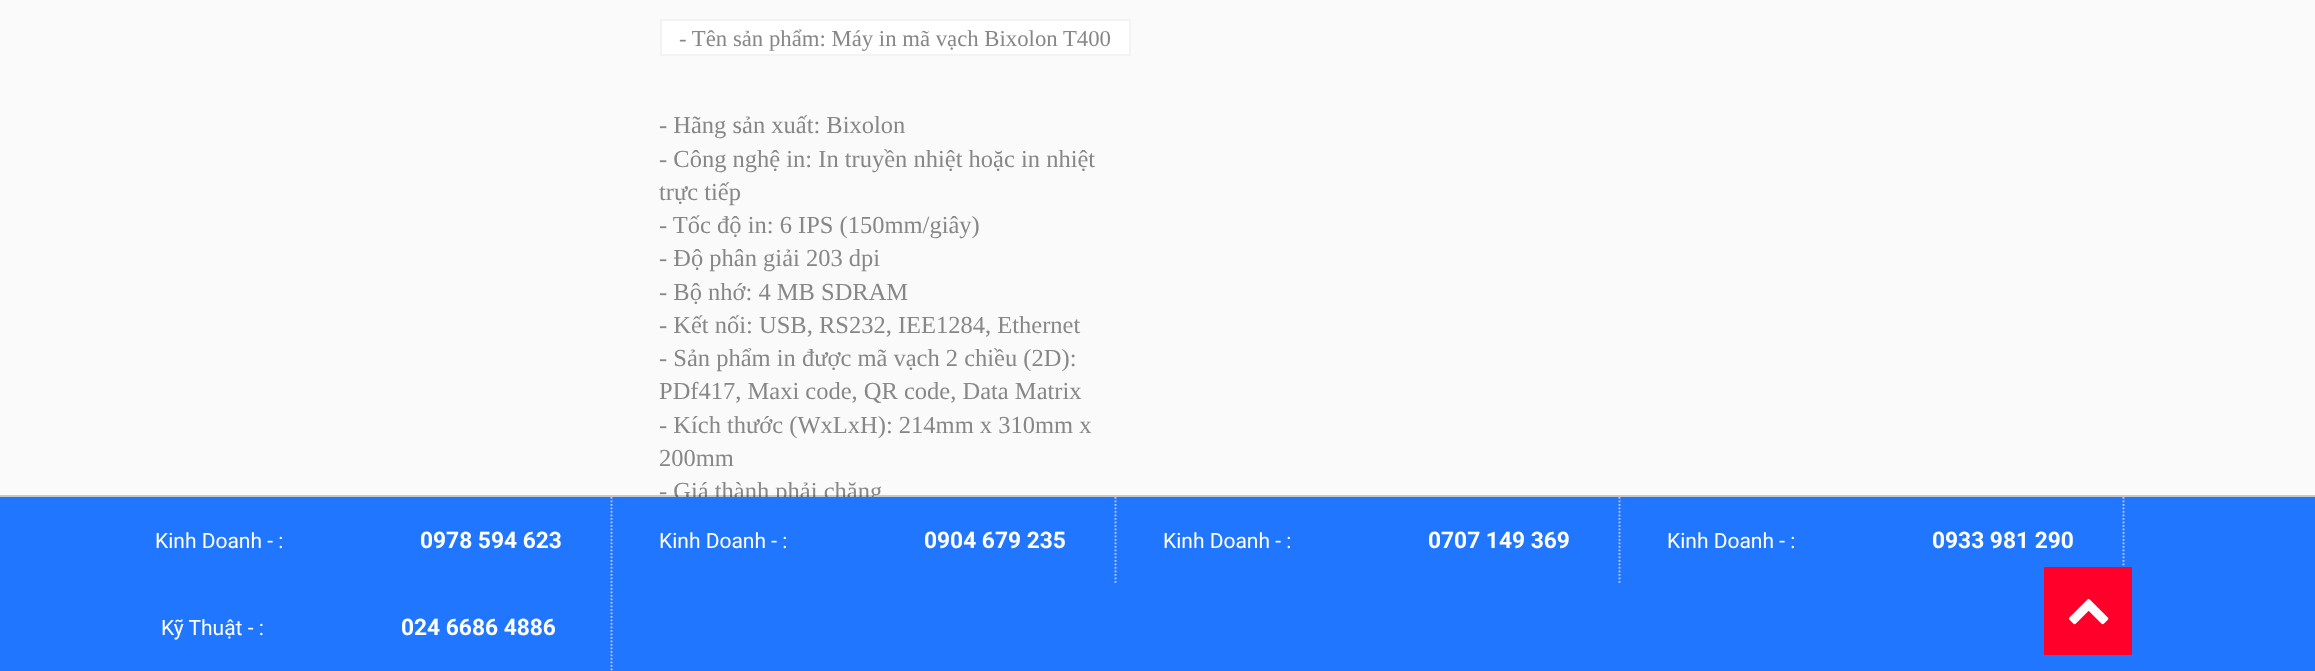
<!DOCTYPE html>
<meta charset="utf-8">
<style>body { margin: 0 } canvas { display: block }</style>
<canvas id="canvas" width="2315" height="671"></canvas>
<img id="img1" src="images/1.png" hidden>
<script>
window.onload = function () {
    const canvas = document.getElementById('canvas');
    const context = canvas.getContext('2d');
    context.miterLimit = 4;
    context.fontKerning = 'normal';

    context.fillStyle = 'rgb(250, 250, 250)';
    context.fillRect(0, 0, 2315, 671);
    context.fillStyle = 'rgb(255, 255, 255)';
    context.beginPath();
    context.rect(661, 20, 469, 35);
    context.fill();
    context.strokeStyle = 'rgb(243, 243, 243)';
    context.lineWidth = 2;
    context.stroke();
    context.font = '22.75px Liberation Serif';
    context.fillStyle = 'rgb(135, 135, 135)';
    context.fillText('- Tên sản phẩm: Máy in mã vạch Bixolon T400', 679, 46);
    context.font = '24.5px Liberation Serif';
    context.fillText('- Hãng sản xuất: Bixolon', 659, 133);
    context.fillText('- Công nghệ in: In truyền nhiệt hoặc in nhiệt', 659, 167);
    context.fillText('trực tiếp', 659, 200);
    context.fillText('- Tốc độ in: 6 IPS (150mm/giây)', 659, 233);
    context.fillText('- Độ phân giải 203 dpi', 659, 266);
    context.fillText('- Bộ nhớ: 4 MB SDRAM', 659, 300);
    context.fillText('- Kết nối: USB, RS232, IEE1284, Ethernet', 659, 333);
    context.fillText('- Sản phẩm in được mã vạch 2 chiều (2D):', 659, 366);
    context.fillText('PDf417, Maxi code, QR code, Data Matrix', 659, 399);
    context.fillText('- Kích thước (WxLxH): 214mm x 310mm x', 659, 433);
    context.fillText('200mm', 659, 466);
    context.fillText('- Giá thành phải chăng', 659, 499);
    context.fillStyle = 'rgba(0, 0, 0, 0.2)';
    context.fillRect(0, 495, 2315, 2);
    context.fillStyle = 'rgb(33, 118, 255)';
    context.fillRect(0, 497, 2315, 174);
    context.beginPath();
    context.moveTo(611.5, 497);
    context.lineTo(611.5, 584.5);
    context.strokeStyle = 'rgb(204, 204, 204)';
    context.lineWidth = 1.8;
    context.setLineDash([1.75, 1.75]);
    context.stroke();
    context.font = '21px Roboto';
    context.fillStyle = 'rgb(255, 255, 255)';
    context.fillText('Kinh Doanh - :', 155, 548);
    context.font = 'bold 22.75px Roboto';
    context.fillText('0978 594 623', 420, 548);
    context.beginPath();
    context.moveTo(1115.5, 497);
    context.lineTo(1115.5, 584.5);
    context.stroke();
    context.font = '21px Roboto';
    context.fillText('Kinh Doanh - :', 659, 548);
    context.font = 'bold 22.75px Roboto';
    context.fillText('0904 679 235', 924, 548);
    context.beginPath();
    context.moveTo(1619.5, 497);
    context.lineTo(1619.5, 584.5);
    context.stroke();
    context.font = '21px Roboto';
    context.fillText('Kinh Doanh - :', 1163, 548);
    context.font = 'bold 22.75px Roboto';
    context.fillText('0707 149 369', 1428, 548);
    context.beginPath();
    context.moveTo(2123.5, 497);
    context.lineTo(2123.5, 584.5);
    context.stroke();
    context.fillStyle = 'rgb(255, 0, 43)';
    context.fillRect(2044, 567, 88, 88);
    context.drawImage(document.getElementById('img1'), 2069, 599, 40, 26);
    context.font = '21px Roboto';
    context.fillStyle = 'rgb(255, 255, 255)';
    context.fillText('Kinh Doanh - :', 1667, 548);
    context.font = 'bold 22.75px Roboto';
    context.fillText('0933 981 290', 1932, 548);
    context.beginPath();
    context.moveTo(611.5, 584.5);
    context.lineTo(611.5, 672);
    context.stroke();
    context.font = '21px Roboto';
    context.fillText('Kỹ Thuật - :', 161, 635);
    context.font = 'bold 22.75px Roboto';
    context.fillText('024 6686 4886', 401, 635);
};
</script>
